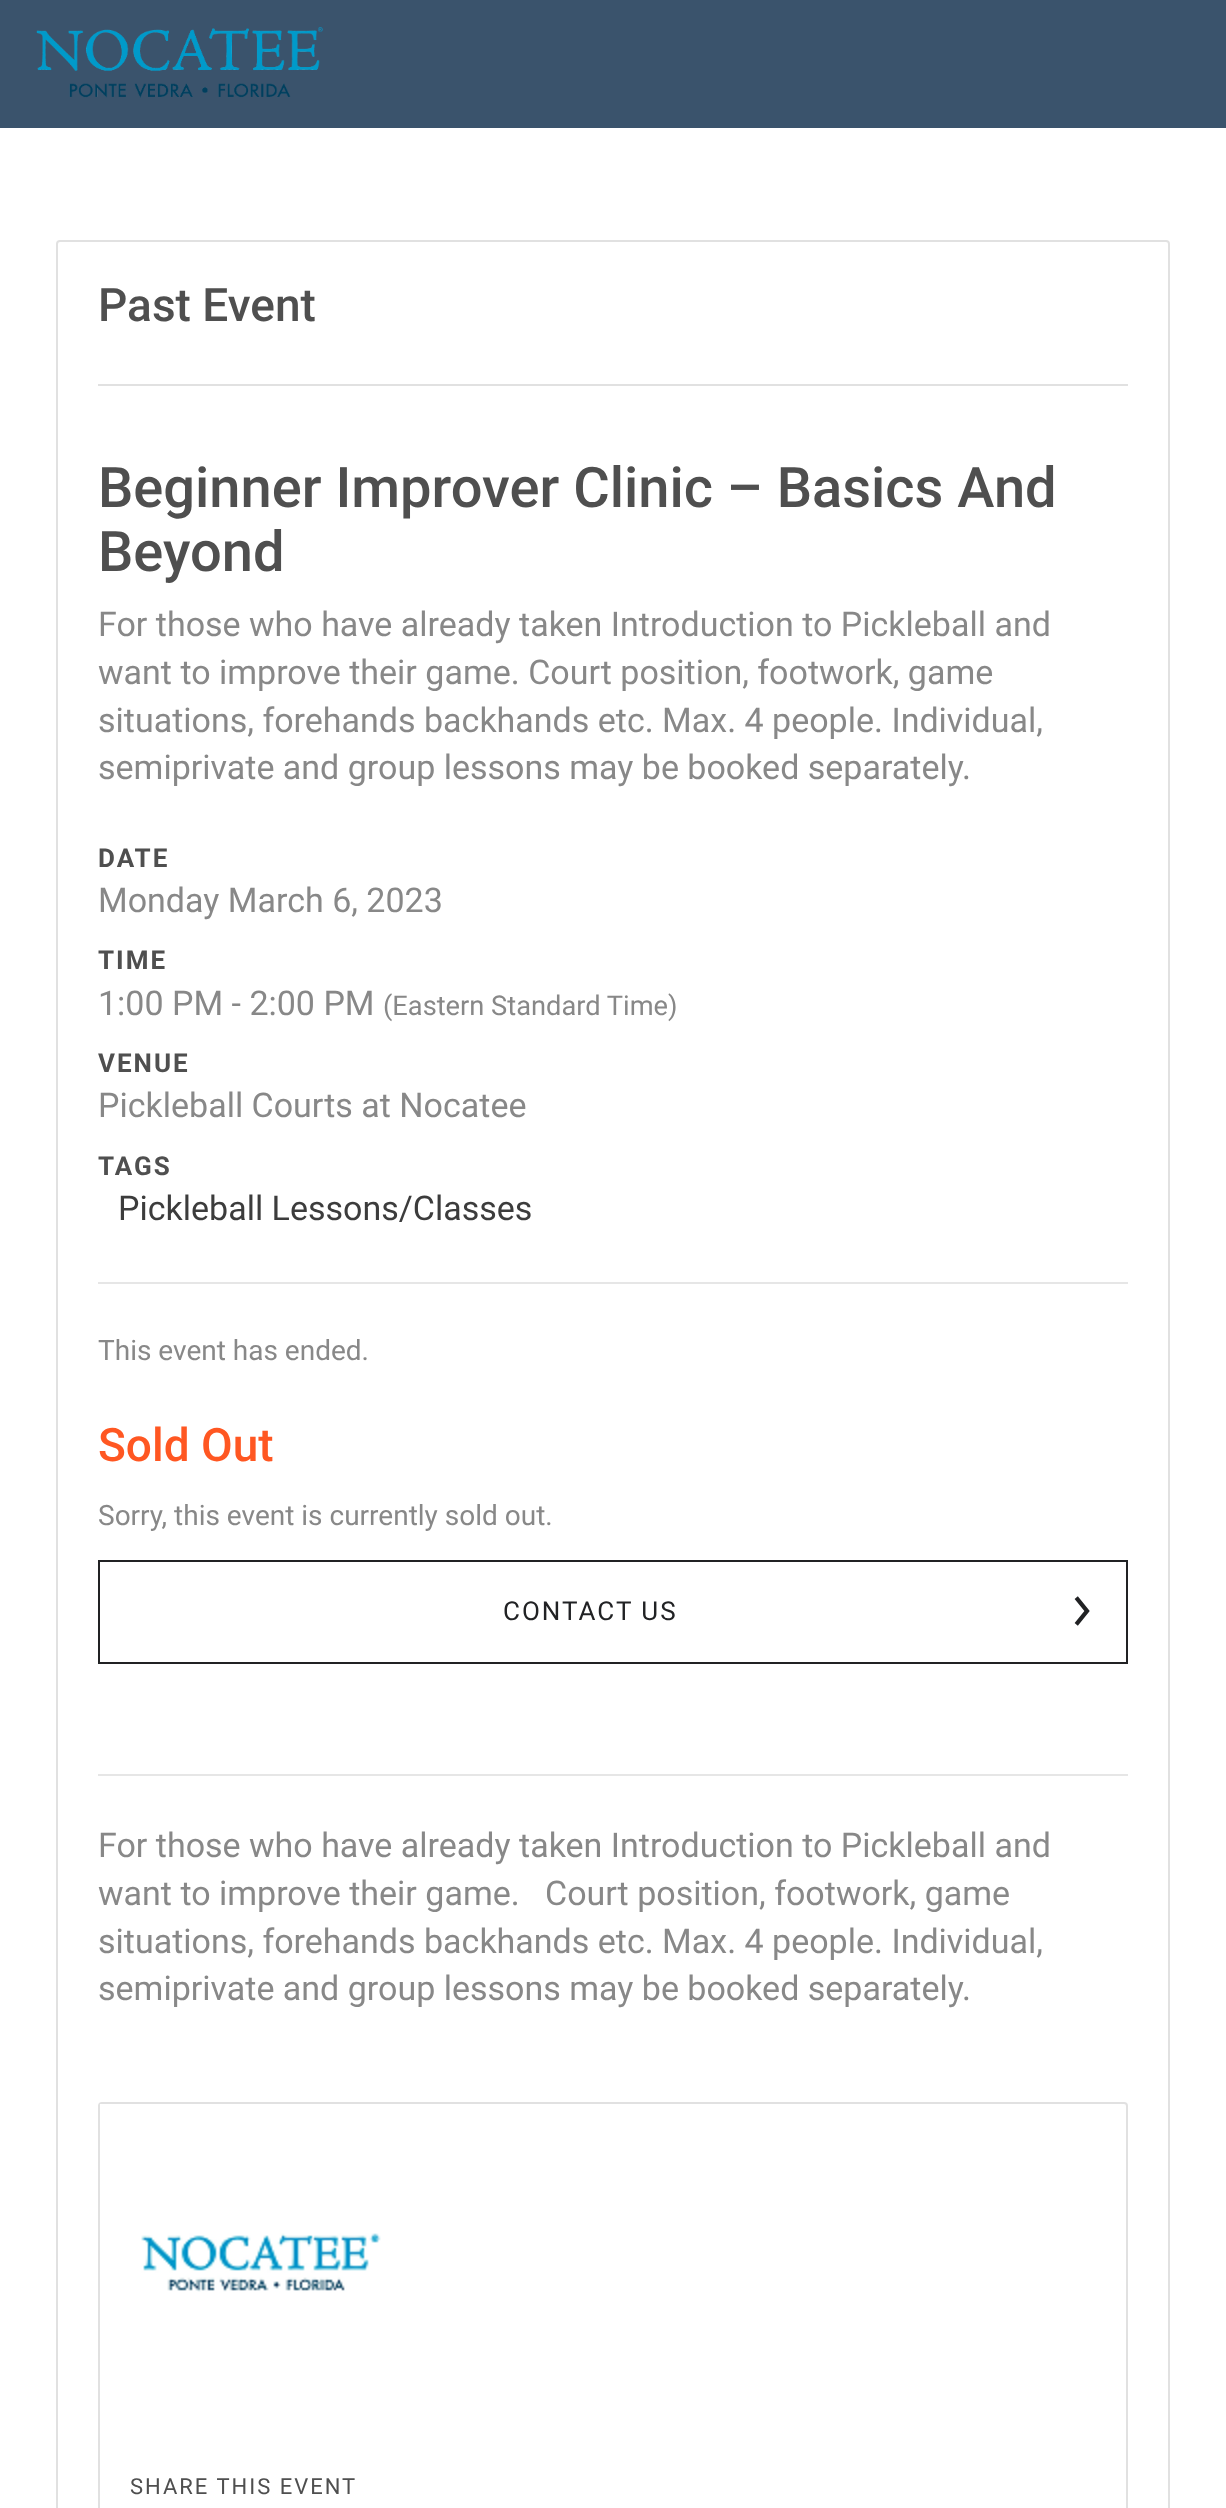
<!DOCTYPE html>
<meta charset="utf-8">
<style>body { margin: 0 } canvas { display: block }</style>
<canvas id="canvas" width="1226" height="2508"></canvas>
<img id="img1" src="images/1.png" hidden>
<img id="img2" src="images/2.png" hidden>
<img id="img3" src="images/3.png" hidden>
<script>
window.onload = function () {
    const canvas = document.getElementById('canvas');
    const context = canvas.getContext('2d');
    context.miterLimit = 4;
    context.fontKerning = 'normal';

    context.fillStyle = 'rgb(255, 255, 255)';
    context.fillRect(0, 0, 1226, 2508);
    context.fillStyle = 'rgb(58, 83, 108)';
    context.fillRect(0, 0, 1226, 128);
    context.drawImage(document.getElementById('img1'), 36, 27, 287, 71);
    context.beginPath();
    context.roundRect(57, 241, 1112, 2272, 3);
    context.strokeStyle = 'rgb(225, 225, 225)';
    context.lineWidth = 2;
    context.stroke();
    context.fillStyle = 'rgb(225, 225, 225)';
    context.fillRect(98, 384, 1030, 2);
    context.fillStyle = 'rgb(230, 230, 230)';
    context.fillRect(98, 1282, 1030, 2);
    context.strokeStyle = 'rgb(33, 34, 36)';
    context.strokeRect(99, 1561, 1028, 102);
    context.drawImage(document.getElementById('img2'), 1074, 1596, 16, 30);
    context.fillRect(98, 1774, 1030, 2);
    context.beginPath();
    context.roundRect(99, 2103, 1028, 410, 3);
    context.strokeStyle = 'rgb(225, 225, 225)';
    context.stroke();
    context.drawImage(document.getElementById('img3'), 100, 2104, 281, 188);
    context.font = '500 46px Roboto';
    context.fillStyle = 'rgb(79, 79, 79)';
    context.fillText('Past Event', 98, 321);
    context.font = '500 56px Roboto';
    context.fillText('Beginner Improver Clinic – Basics And', 98, 507);
    context.fillText('Beyond', 98, 571);
    context.font = '34px Roboto';
    context.fillStyle = 'rgb(136, 136, 136)';
    context.fillText('For those who have already taken Introduction to Pickleball and', 98, 636);
    context.fillText('want to improve their game. Court position, footwork, game', 98, 684);
    context.fillText('situations, forehands backhands etc. Max. 4 people. Individual,', 98, 732);
    context.fillText('semiprivate and group lessons may be booked separately.', 98, 779);
    context.letterSpacing = '2px';
    context.font = 'bold 26px Roboto';
    context.fillStyle = 'rgb(79, 79, 79)';
    context.fillText('DATE', 98, 867);
    context.letterSpacing = '0px';
    context.font = '34px Roboto';
    context.fillStyle = 'rgb(136, 136, 136)';
    context.fillText('Monday March 6, 2023', 98, 912);
    context.letterSpacing = '2px';
    context.font = 'bold 26px Roboto';
    context.fillStyle = 'rgb(79, 79, 79)';
    context.fillText('TIME', 98, 969);
    context.letterSpacing = '0px';
    context.font = '34px Roboto';
    context.fillStyle = 'rgb(136, 136, 136)';
    context.fillText('1:00 PM - 2:00 PM', 98, 1015);
    context.font = '27.25px Roboto';
    context.fillText('(Eastern Standard Time)', 383, 1015);
    context.letterSpacing = '2px';
    context.font = 'bold 26px Roboto';
    context.fillStyle = 'rgb(79, 79, 79)';
    context.fillText('VENUE', 98, 1072);
    context.letterSpacing = '0px';
    context.font = '34px Roboto';
    context.fillStyle = 'rgb(136, 136, 136)';
    context.fillText('Pickleball Courts at Nocatee', 98, 1117);
    context.letterSpacing = '2px';
    context.font = 'bold 26px Roboto';
    context.fillStyle = 'rgb(79, 79, 79)';
    context.fillText('TAGS', 98, 1175);
    context.letterSpacing = '0px';
    context.font = '34px Roboto';
    context.fillStyle = 'rgb(60, 60, 60)';
    context.fillText('Pickleball Lessons/Classes', 118, 1220);
    context.font = '28px Roboto';
    context.fillStyle = 'rgb(136, 136, 136)';
    context.fillText('This event has ended.', 98, 1360);
    context.font = '500 46px Roboto';
    context.fillStyle = 'rgb(255, 87, 34)';
    context.fillText('Sold Out', 98, 1461);
    context.font = '28px Roboto';
    context.fillStyle = 'rgb(136, 136, 136)';
    context.fillText('Sorry, this event is currently sold out.', 98, 1525);
    context.letterSpacing = '2px';
    context.font = '26px Roboto';
    context.fillStyle = 'rgb(33, 34, 36)';
    context.fillText('CONTACT US', 503, 1620);
    context.letterSpacing = '0px';
    context.font = '34px Roboto';
    context.fillStyle = 'rgb(136, 136, 136)';
    context.fillText('For those who have already taken Introduction to Pickleball and', 98, 1857);
    context.fillText('want to improve their game.', 98, 1905);
    context.fillText('Court position, footwork, game', 545, 1905);
    context.fillText('situations, forehands backhands etc. Max. 4 people. Individual,', 98, 1953);
    context.fillText('semiprivate and group lessons may be booked separately.', 98, 2000);
    context.letterSpacing = '2px';
    context.font = '22px Roboto';
    context.fillStyle = 'rgb(79, 79, 79)';
    context.fillText('SHARE THIS EVENT', 130, 2494);
};
</script>
